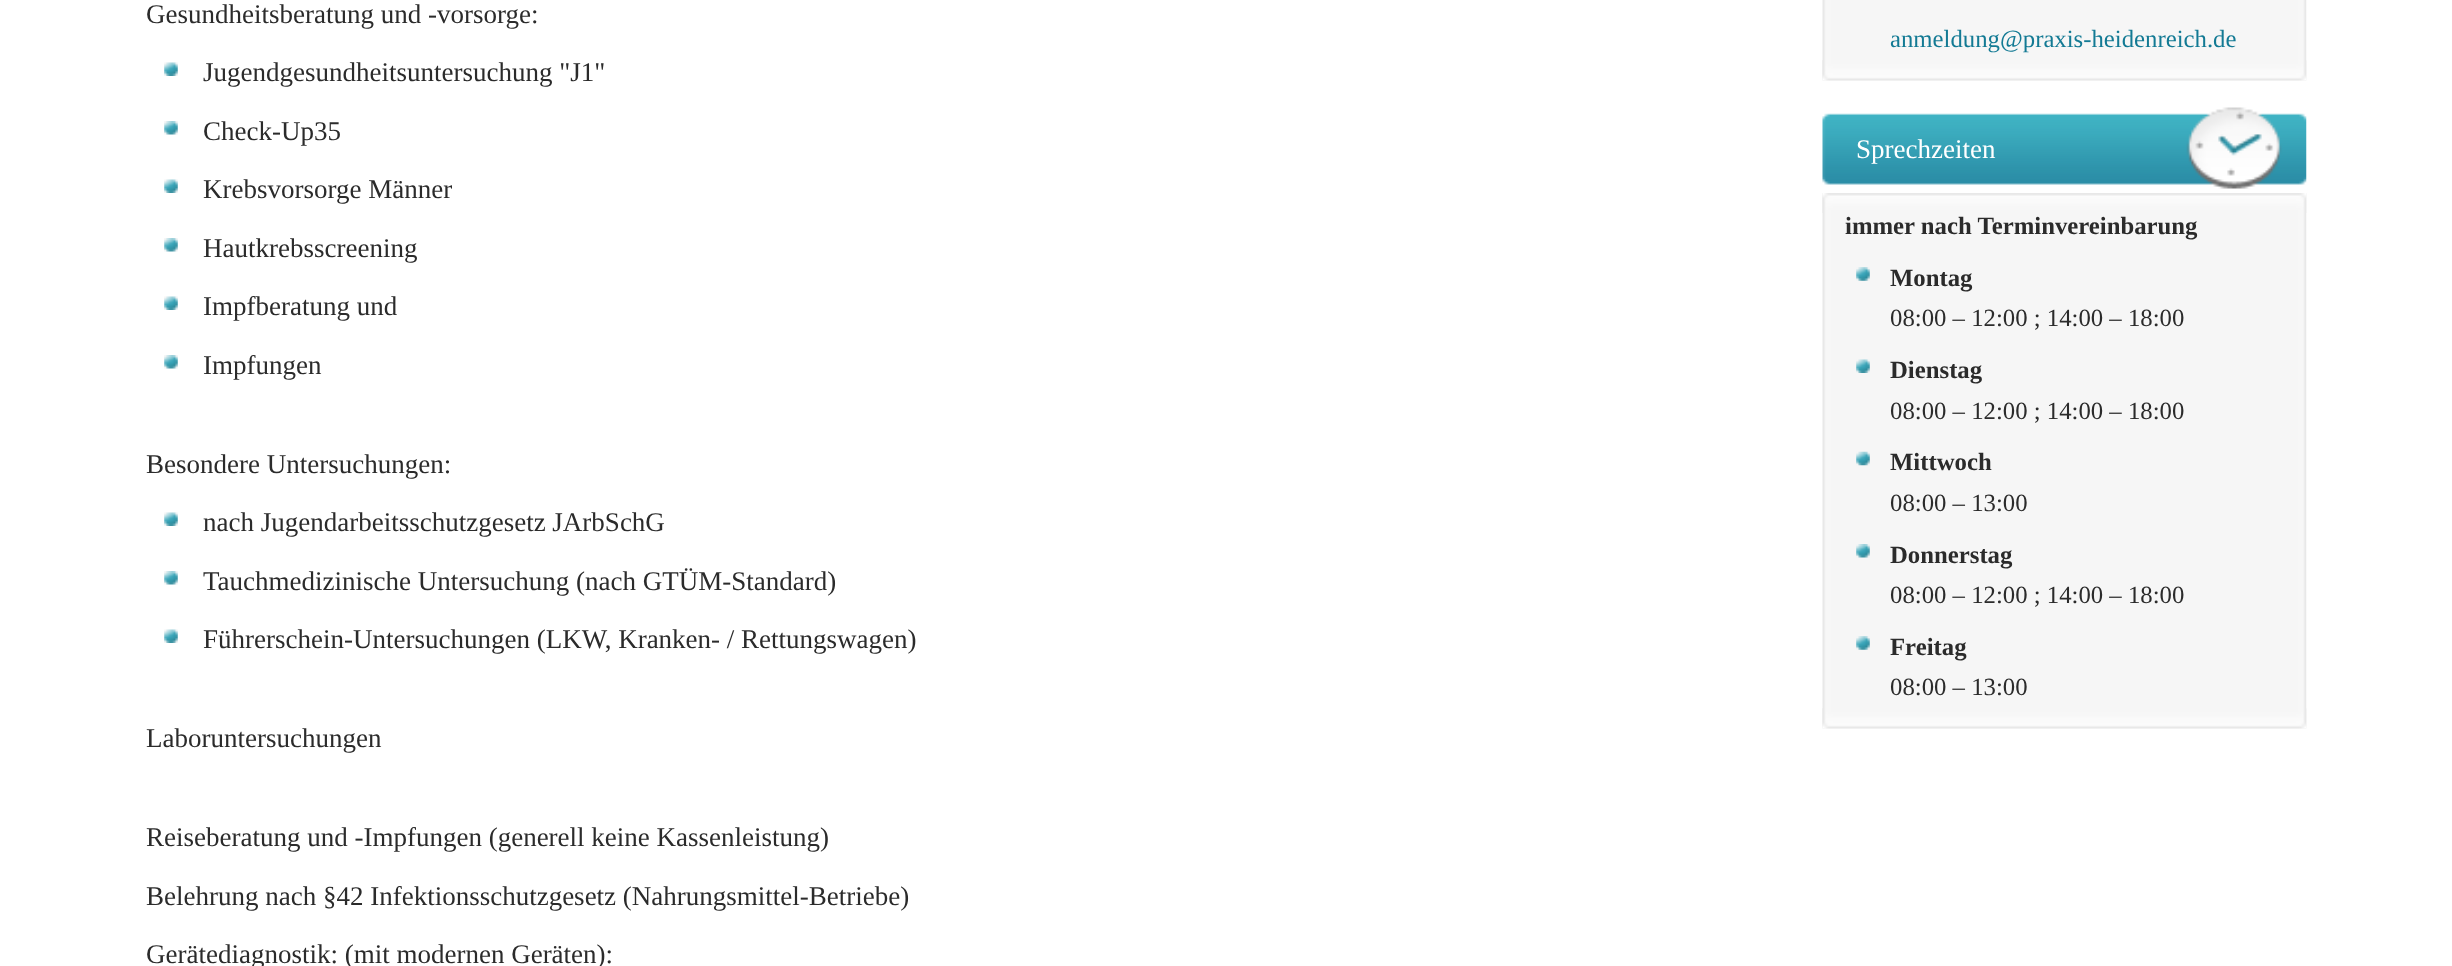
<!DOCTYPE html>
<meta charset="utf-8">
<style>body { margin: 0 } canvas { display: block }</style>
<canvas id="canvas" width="2452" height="966"></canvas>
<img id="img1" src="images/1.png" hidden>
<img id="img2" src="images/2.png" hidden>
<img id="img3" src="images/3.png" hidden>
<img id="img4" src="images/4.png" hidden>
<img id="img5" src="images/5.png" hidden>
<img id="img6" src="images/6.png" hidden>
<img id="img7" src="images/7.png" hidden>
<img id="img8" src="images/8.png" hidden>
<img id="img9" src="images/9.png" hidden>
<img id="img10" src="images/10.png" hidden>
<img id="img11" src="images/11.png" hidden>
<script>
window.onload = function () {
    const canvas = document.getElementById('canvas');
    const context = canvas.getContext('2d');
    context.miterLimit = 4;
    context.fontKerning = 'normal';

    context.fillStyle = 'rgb(255, 255, 255)';
    context.fillRect(0, 0, 2452, 966);
    context.drawImage(document.getElementById('img1'), 164, 62, 14, 14);
    context.drawImage(document.getElementById('img2'), 164, 121, 14, 14);
    context.drawImage(document.getElementById('img1'), 164, 179, 14, 14);
    context.drawImage(document.getElementById('img2'), 164, 238, 14, 14);
    context.drawImage(document.getElementById('img1'), 164, 296, 14, 14);
    context.drawImage(document.getElementById('img2'), 164, 355, 14, 14);
    context.drawImage(document.getElementById('img1'), 164, 512, 14, 14);
    context.drawImage(document.getElementById('img2'), 164, 571, 14, 14);
    context.drawImage(document.getElementById('img1'), 164, 629, 14, 14);
    context.drawImage(document.getElementById('img3'), 1822, 0, 485, 81);
    context.drawImage(document.getElementById('img4'), 1822, 60, 485, 21);
    context.drawImage(document.getElementById('img5'), 1822, 107, 485, 82);
    context.drawImage(document.getElementById('img6'), 1822, 193, 485, 536);
    context.drawImage(document.getElementById('img4'), 1822, 708, 485, 21);
    context.drawImage(document.getElementById('img7'), 1822, 193, 485, 20);
    context.drawImage(document.getElementById('img8'), 1856, 267, 14, 14);
    context.drawImage(document.getElementById('img9'), 1856, 359, 14, 14);
    context.drawImage(document.getElementById('img10'), 1856, 451, 14, 15);
    context.drawImage(document.getElementById('img11'), 1856, 544, 14, 14);
    context.drawImage(document.getElementById('img8'), 1856, 636, 14, 14);
    context.font = '27px Liberation Serif';
    context.fillStyle = 'rgb(43, 43, 43)';
    context.fillText('Gesundheitsberatung und -vorsorge:', 146, 23);
    context.fillText('Jugendgesundheitsuntersuchung "J1"', 203, 81);
    context.fillText('Check-Up35', 203, 140);
    context.fillText('Krebsvorsorge Männer', 203, 198);
    context.fillText('Hautkrebsscreening', 203, 257);
    context.fillText('Impfberatung und', 203, 315);
    context.fillText('Impfungen', 203, 374);
    context.fillText('Besondere Untersuchungen:', 146, 473);
    context.fillText('nach Jugendarbeitsschutzgesetz JArbSchG', 203, 531);
    context.fillText('Tauchmedizinische Untersuchung (nach GTÜM-Standard)', 203, 590);
    context.fillText('Führerschein-Untersuchungen (LKW, Kranken- / Rettungswagen)', 203, 648);
    context.fillText('Laboruntersuchungen', 146, 747);
    context.fillText('Reiseberatung und -Impfungen (generell keine Kassenleistung)', 146, 846);
    context.fillText('Belehrung nach §42 Infektionsschutzgesetz (Nahrungsmittel-Betriebe)', 146, 905);
    context.fillText('Gerätediagnostik: (mit modernen Geräten):', 146, 963);
    context.font = '24.75px Liberation Serif';
    context.fillStyle = 'rgb(19, 122, 148)';
    context.fillText('anmeldung@praxis-heidenreich.de', 1890, 47);
    context.font = '27px Liberation Serif';
    context.fillStyle = 'rgb(255, 255, 255)';
    context.fillText('Sprechzeiten', 1856, 158);
    context.font = 'bold 24.75px Liberation Serif';
    context.fillStyle = 'rgb(43, 43, 43)';
    context.fillText('immer nach Terminvereinbarung', 1845, 234);
    context.fillText('Montag', 1890, 286);
    context.font = '24.75px Liberation Serif';
    context.fillText('08:00 – 12:00 ; 14:00 – 18:00', 1890, 326);
    context.font = 'bold 24.75px Liberation Serif';
    context.fillText('Dienstag', 1890, 378);
    context.font = '24.75px Liberation Serif';
    context.fillText('08:00 – 12:00 ; 14:00 – 18:00', 1890, 419);
    context.font = 'bold 24.75px Liberation Serif';
    context.fillText('Mittwoch', 1890, 470);
    context.font = '24.75px Liberation Serif';
    context.fillText('08:00 – 13:00', 1890, 511);
    context.font = 'bold 24.75px Liberation Serif';
    context.fillText('Donnerstag', 1890, 563);
    context.font = '24.75px Liberation Serif';
    context.fillText('08:00 – 12:00 ; 14:00 – 18:00', 1890, 603);
    context.font = 'bold 24.75px Liberation Serif';
    context.fillText('Freitag', 1890, 655);
    context.font = '24.75px Liberation Serif';
    context.fillText('08:00 – 13:00', 1890, 695);
};
</script>
